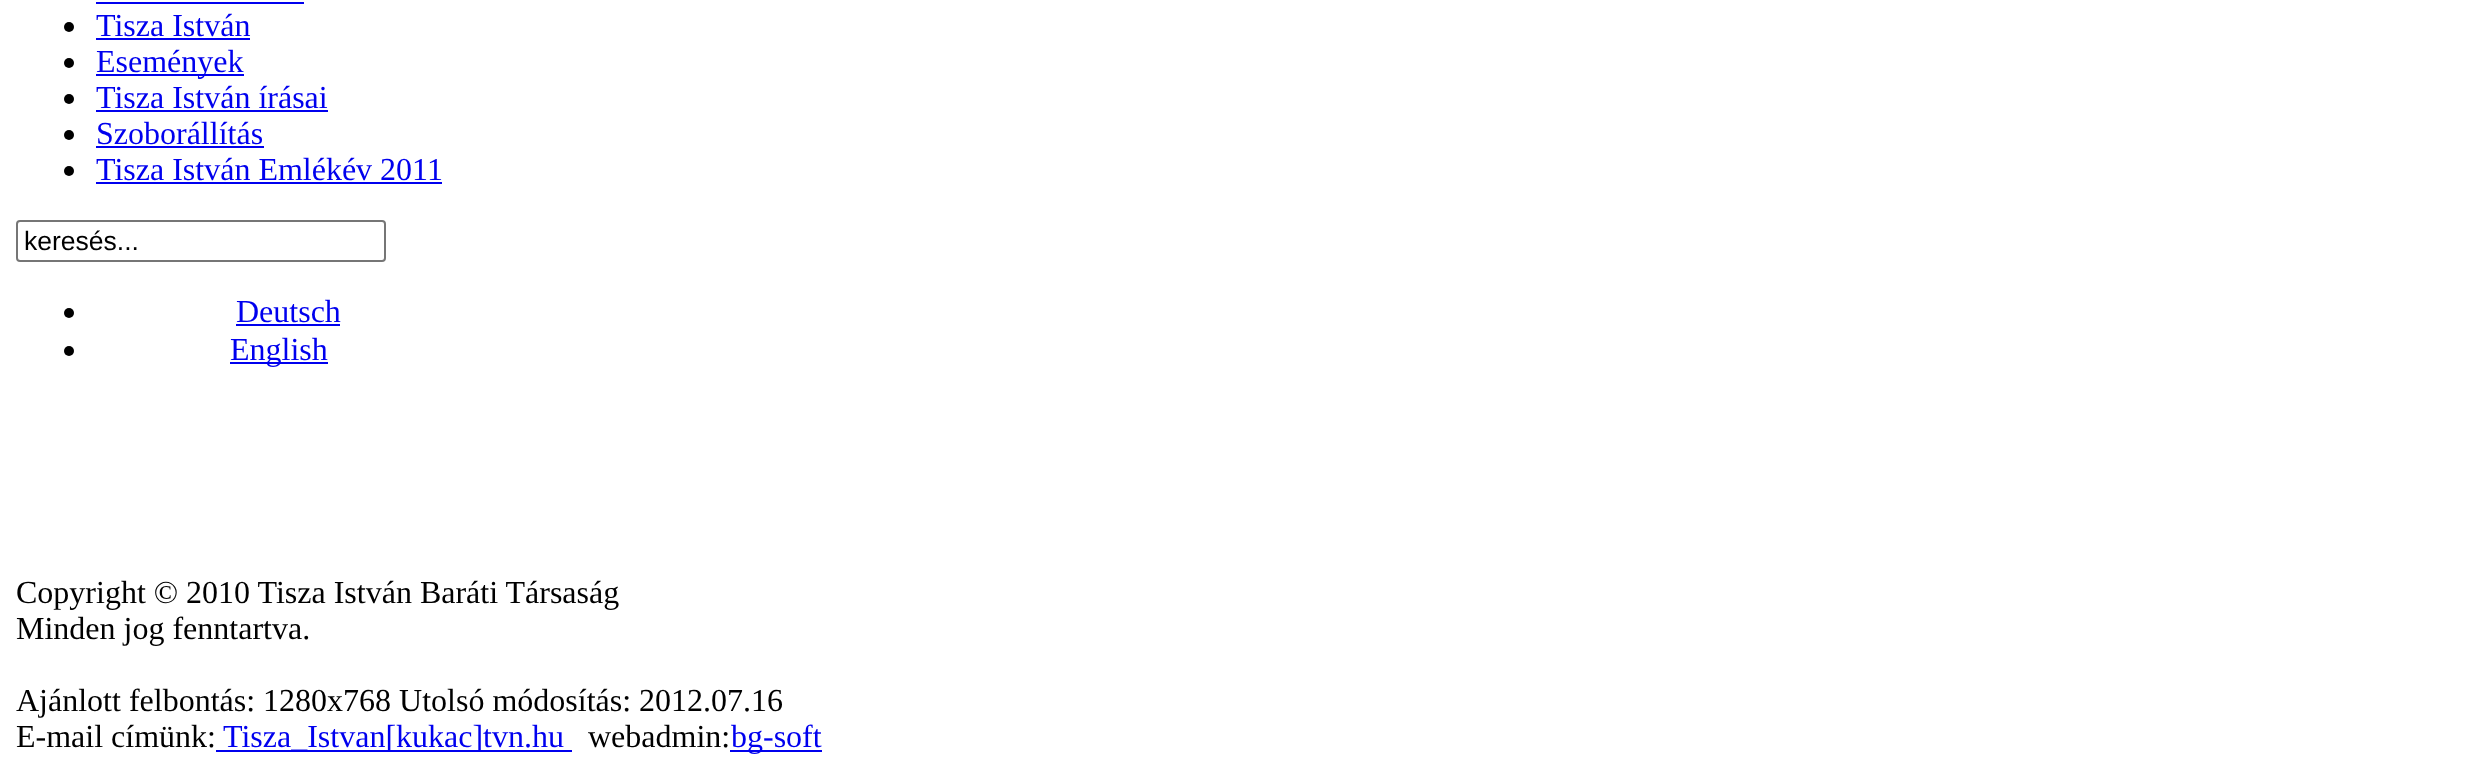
<!DOCTYPE html>
<meta charset="utf-8">
<style>body { margin: 0 } canvas { display: block }</style>
<canvas id="canvas" width="2491" height="767"></canvas>
<script>
window.onload = function () {
    const canvas = document.getElementById('canvas');
    const context = canvas.getContext('2d');
    context.miterLimit = 4;
    context.fontKerning = 'normal';

    context.fillStyle = 'rgb(255, 255, 255)';
    context.fillRect(0, 0, 2491, 767);
    context.fillStyle = 'rgb(0, 0, 238)';
    context.fillRect(96, 2, 208, 2);
    context.fillStyle = 'rgb(0, 0, 0)';
    context.beginPath();
    context.arc(69, 27, 5, 0, 2 * Math.PI);
    context.fill();
    context.fillStyle = 'rgb(0, 0, 238)';
    context.fillRect(96, 38, 154, 2);
    context.fillStyle = 'rgb(0, 0, 0)';
    context.beginPath();
    context.arc(69, 63, 5, 0, 2 * Math.PI);
    context.fill();
    context.fillStyle = 'rgb(0, 0, 238)';
    context.fillRect(96, 74, 148, 2);
    context.fillStyle = 'rgb(0, 0, 0)';
    context.beginPath();
    context.arc(69, 99, 5, 0, 2 * Math.PI);
    context.fill();
    context.fillStyle = 'rgb(0, 0, 238)';
    context.fillRect(96, 110, 232, 2);
    context.fillStyle = 'rgb(0, 0, 0)';
    context.beginPath();
    context.arc(69, 135, 5, 0, 2 * Math.PI);
    context.fill();
    context.fillStyle = 'rgb(0, 0, 238)';
    context.fillRect(96, 146, 168, 2);
    context.fillStyle = 'rgb(0, 0, 0)';
    context.beginPath();
    context.arc(69, 171, 5, 0, 2 * Math.PI);
    context.fill();
    context.fillStyle = 'rgb(0, 0, 238)';
    context.fillRect(96, 182, 346, 2);
    context.beginPath();
    context.roundRect(17, 221, 368, 40, 3);
    context.strokeStyle = 'rgb(118, 118, 118)';
    context.lineWidth = 2;
    context.stroke();
    context.fillStyle = 'rgb(0, 0, 0)';
    context.beginPath();
    context.arc(69, 313, 5, 0, 2 * Math.PI);
    context.fill();
    context.fillStyle = 'rgb(0, 0, 238)';
    context.fillRect(236, 324, 104, 2);
    context.fillStyle = 'rgb(0, 0, 0)';
    context.beginPath();
    context.arc(69, 351, 5, 0, 2 * Math.PI);
    context.fill();
    context.fillStyle = 'rgb(0, 0, 238)';
    context.fillRect(230, 362, 98, 2);
    context.fillRect(216, 750, 356, 2);
    context.fillRect(730, 750, 92, 2);
    context.font = '32px Liberation Serif';
    context.fillText('Tisza István', 96, 36);
    context.fillText('Események', 96, 72);
    context.fillText('Tisza István írásai', 96, 108);
    context.fillText('Szoborállítás', 96, 144);
    context.fillText('Tisza István Emlékév 2011', 96, 180);
    context.font = '26.5px Liberation Sans';
    context.fillStyle = 'rgb(0, 0, 0)';
    context.fillText('keresés...', 24, 250);
    context.font = '32px Liberation Serif';
    context.fillStyle = 'rgb(0, 0, 238)';
    context.fillText('Deutsch', 236, 322);
    context.fillText('English', 230, 360);
    context.fillStyle = 'rgb(0, 0, 0)';
    context.fillText('Copyright © 2010 Tisza István Baráti Társaság', 16, 603);
    context.fillText('Minden jog fenntartva.', 16, 639);
    context.fillText('Ajánlott felbontás: 1280x768 Utolsó módosítás: 2012.07.16', 16, 711);
    context.fillText('E-mail címünk:', 16, 747);
    context.fillStyle = 'rgb(0, 0, 238)';
    context.fillText('Tisza_Istvan[kukac]tvn.hu', 223, 747);
    context.fillStyle = 'rgb(0, 0, 0)';
    context.fillText('webadmin:', 588, 747);
    context.fillStyle = 'rgb(0, 0, 238)';
    context.fillText('bg-soft', 731, 747);
};
</script>
